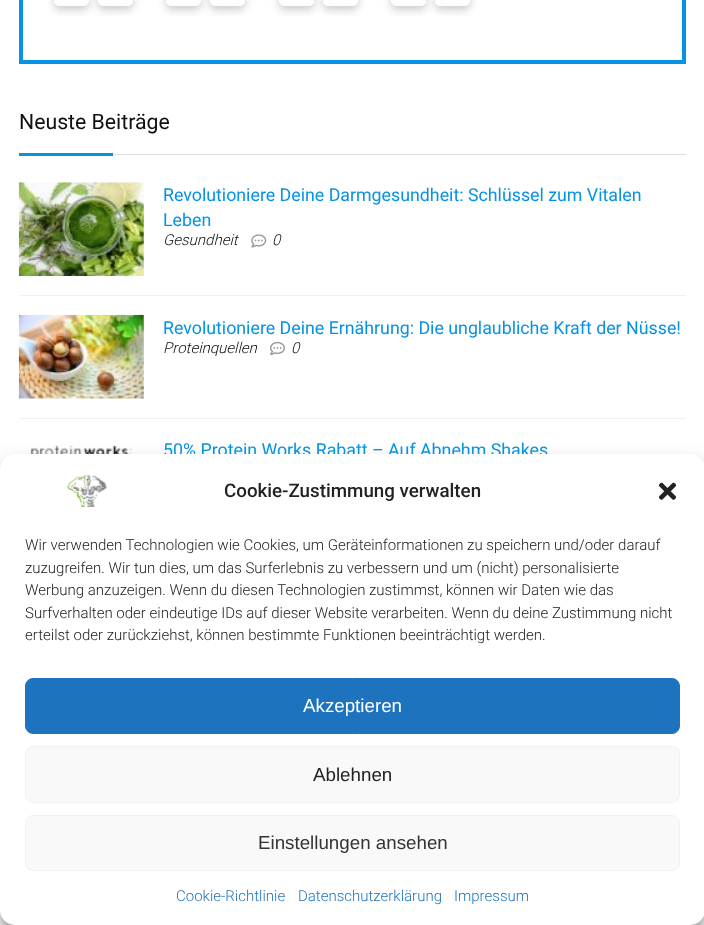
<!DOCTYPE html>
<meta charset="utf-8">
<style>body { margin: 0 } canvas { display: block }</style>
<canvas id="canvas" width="704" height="925"></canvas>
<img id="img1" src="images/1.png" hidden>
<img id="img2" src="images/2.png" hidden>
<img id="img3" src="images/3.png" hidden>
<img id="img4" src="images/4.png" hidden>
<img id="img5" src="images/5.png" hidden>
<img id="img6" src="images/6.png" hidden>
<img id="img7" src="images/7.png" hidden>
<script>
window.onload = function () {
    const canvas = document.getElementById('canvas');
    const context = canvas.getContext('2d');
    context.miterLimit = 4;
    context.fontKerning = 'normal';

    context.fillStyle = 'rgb(255, 255, 255)';
    context.fillRect(0, 0, 704, 925);
    context.strokeStyle = 'rgb(6, 147, 227)';
    context.lineWidth = 4;
    context.strokeRect(21, -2, 663, 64);
    context.save();
    context.beginPath();
    context.rect(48, 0, 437, 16);
    context.clip();
    context.fillStyle = 'rgb(204, 204, 204)';
    context.filter = 'blur(4px)';
    context.beginPath();
    context.roundRect(54, -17, 35, 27, 5);
    context.fill();
    context.filter = 'none';
    context.restore();
    context.beginPath();
    context.roundRect(54, -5, 35, 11, 5);
    context.fill();
    context.save();
    context.beginPath();
    context.rect(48, 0, 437, 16);
    context.clip();
    context.fillStyle = 'rgb(204, 204, 204)';
    context.filter = 'blur(4px)';
    context.beginPath();
    context.roundRect(98, -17, 35, 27, 5);
    context.fill();
    context.filter = 'none';
    context.restore();
    context.beginPath();
    context.roundRect(98, -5, 35, 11, 5);
    context.fill();
    context.save();
    context.beginPath();
    context.rect(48, 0, 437, 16);
    context.clip();
    context.fillStyle = 'rgb(204, 204, 204)';
    context.filter = 'blur(4px)';
    context.beginPath();
    context.roundRect(166, -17, 35, 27, 5);
    context.fill();
    context.filter = 'none';
    context.restore();
    context.beginPath();
    context.roundRect(166, -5, 35, 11, 5);
    context.fill();
    context.save();
    context.beginPath();
    context.rect(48, 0, 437, 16);
    context.clip();
    context.fillStyle = 'rgb(204, 204, 204)';
    context.filter = 'blur(4px)';
    context.beginPath();
    context.roundRect(210, -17, 35, 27, 5);
    context.fill();
    context.filter = 'none';
    context.restore();
    context.beginPath();
    context.roundRect(210, -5, 35, 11, 5);
    context.fill();
    context.save();
    context.beginPath();
    context.rect(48, 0, 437, 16);
    context.clip();
    context.fillStyle = 'rgb(204, 204, 204)';
    context.filter = 'blur(4px)';
    context.beginPath();
    context.roundRect(279, -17, 35, 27, 5);
    context.fill();
    context.filter = 'none';
    context.restore();
    context.beginPath();
    context.roundRect(279, -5, 35, 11, 5);
    context.fill();
    context.save();
    context.beginPath();
    context.rect(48, 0, 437, 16);
    context.clip();
    context.fillStyle = 'rgb(204, 204, 204)';
    context.filter = 'blur(4px)';
    context.beginPath();
    context.roundRect(323, -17, 35, 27, 5);
    context.fill();
    context.filter = 'none';
    context.restore();
    context.beginPath();
    context.roundRect(323, -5, 35, 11, 5);
    context.fill();
    context.save();
    context.beginPath();
    context.rect(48, 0, 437, 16);
    context.clip();
    context.fillStyle = 'rgb(204, 204, 204)';
    context.filter = 'blur(4px)';
    context.beginPath();
    context.roundRect(391, -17, 35, 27, 5);
    context.fill();
    context.filter = 'none';
    context.restore();
    context.beginPath();
    context.roundRect(391, -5, 35, 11, 5);
    context.fill();
    context.save();
    context.beginPath();
    context.rect(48, 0, 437, 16);
    context.clip();
    context.fillStyle = 'rgb(204, 204, 204)';
    context.filter = 'blur(4px)';
    context.beginPath();
    context.roundRect(435, -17, 35, 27, 5);
    context.fill();
    context.filter = 'none';
    context.restore();
    context.beginPath();
    context.roundRect(435, -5, 35, 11, 5);
    context.fill();
    context.fillStyle = 'rgb(221, 221, 221)';
    context.fillRect(113, 154, 573, 1);
    context.fillStyle = 'rgb(6, 147, 227)';
    context.fillRect(19, 153, 94, 3);
    context.fillStyle = 'rgb(240, 240, 240)';
    context.fillRect(19, 295, 667, 1);
    context.drawImage(document.getElementById('img1'), 18, 182, 126, 94);
    context.drawImage(document.getElementById('img2'), 251, 234, 16, 14);
    context.fillRect(19, 418, 667, 1);
    context.drawImage(document.getElementById('img3'), 18, 314, 126, 85);
    context.drawImage(document.getElementById('img4'), 270, 341, 15, 14);
    context.drawImage(document.getElementById('img5'), 30, 445, 103, 9);
    context.fillStyle = 'rgba(0, 0, 0, 0.23)';
    context.filter = 'blur(4px)';
    context.beginPath();
    context.roundRect(0, 461, 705, 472, 15);
    context.fill();
    context.filter = 'none';
    context.fillStyle = 'rgba(0, 0, 0, 0.19)';
    context.filter = 'blur(12.5px)';
    context.beginPath();
    context.roundRect(0, 466, 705, 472, 15);
    context.fill();
    context.filter = 'none';
    context.font = '21.25px Roboto';
    context.fillStyle = 'rgb(17, 17, 17)';
    context.fillText('Neuste Beiträge', 19, 129);
    context.font = '17.8px Roboto';
    context.fillStyle = 'rgb(6, 147, 227)';
    context.fillText('Revolutioniere Deine Darmgesundheit: Schlüssel zum Vitalen', 163, 201);
    context.fillText('Leben', 163, 226);
    context.font = 'italic 300 15px Roboto';
    context.fillStyle = 'rgb(17, 17, 17)';
    context.fillText('Gesundheit', 163, 245);
    context.fillText('0', 272, 245);
    context.font = '17.8px Roboto';
    context.fillStyle = 'rgb(6, 147, 227)';
    context.fillText('Revolutioniere Deine Ernährung: Die unglaubliche Kraft der Nüsse!', 163, 334);
    context.font = 'italic 300 15px Roboto';
    context.fillStyle = 'rgb(17, 17, 17)';
    context.fillText('Proteinquellen', 163, 353);
    context.fillText('0', 291, 353);
    context.font = '17.8px Roboto';
    context.fillStyle = 'rgb(6, 147, 227)';
    context.fillText('50% Protein Works Rabatt – Auf Abnehm Shakes', 163, 456);
    context.fillStyle = 'rgb(255, 255, 255)';
    context.beginPath();
    context.roundRect(0, 454, 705, 471, 15);
    context.fill();
    context.drawImage(document.getElementById('img6'), 67, 474, 40, 34);
    context.font = '500 18.75px Roboto';
    context.fillStyle = 'rgb(34, 34, 34)';
    context.fillText('Cookie-Zustimmung verwalten', 224, 497);
    context.drawImage(document.getElementById('img7'), 658, 482, 19, 18);
    context.font = '300 15px Roboto';
    context.fillText('Wir verwenden Technologien wie Cookies, um Geräteinformationen zu speichern und/oder darauf', 25, 550);
    context.fillText('zuzugreifen. Wir tun dies, um das Surferlebnis zu verbessern und um (nicht) personalisierte', 25, 573);
    context.fillText('Werbung anzuzeigen. Wenn du diesen Technologien zustimmst, können wir Daten wie das', 25, 595);
    context.fillText('Surfverhalten oder eindeutige IDs auf dieser Website verarbeiten. Wenn du deine Zustimmung nicht', 25, 618);
    context.fillText('erteilst oder zurückziehst, können bestimmte Funktionen beeinträchtigt werden.', 25, 640);
    context.fillStyle = 'rgb(30, 115, 190)';
    context.beginPath();
    context.roundRect(25.5, 678.5, 654, 55, 7.5);
    context.fill();
    context.strokeStyle = 'rgb(30, 115, 190)';
    context.lineWidth = 1;
    context.stroke();
    context.font = '18.75px Liberation Sans';
    context.fillStyle = 'rgb(255, 255, 255)';
    context.fillText('Akzeptieren', 303, 712);
    context.fillStyle = 'rgb(249, 249, 249)';
    context.beginPath();
    context.roundRect(25.5, 746.5, 654, 56, 7.5);
    context.fill();
    context.strokeStyle = 'rgb(242, 242, 242)';
    context.stroke();
    context.fillStyle = 'rgb(34, 34, 34)';
    context.fillText('Ablehnen', 313, 781);
    context.fillStyle = 'rgb(249, 249, 249)';
    context.beginPath();
    context.roundRect(25.5, 815.5, 654, 55, 7.5);
    context.fill();
    context.stroke();
    context.fillStyle = 'rgb(51, 51, 51)';
    context.fillText('Einstellungen ansehen', 258, 849);
    context.font = '300 15px Roboto';
    context.fillStyle = 'rgb(30, 115, 190)';
    context.fillText('Cookie-Richtlinie', 176, 901);
    context.fillText('Datenschutzerklärung', 298, 901);
    context.fillText('Impressum', 454, 901);
};
</script>
